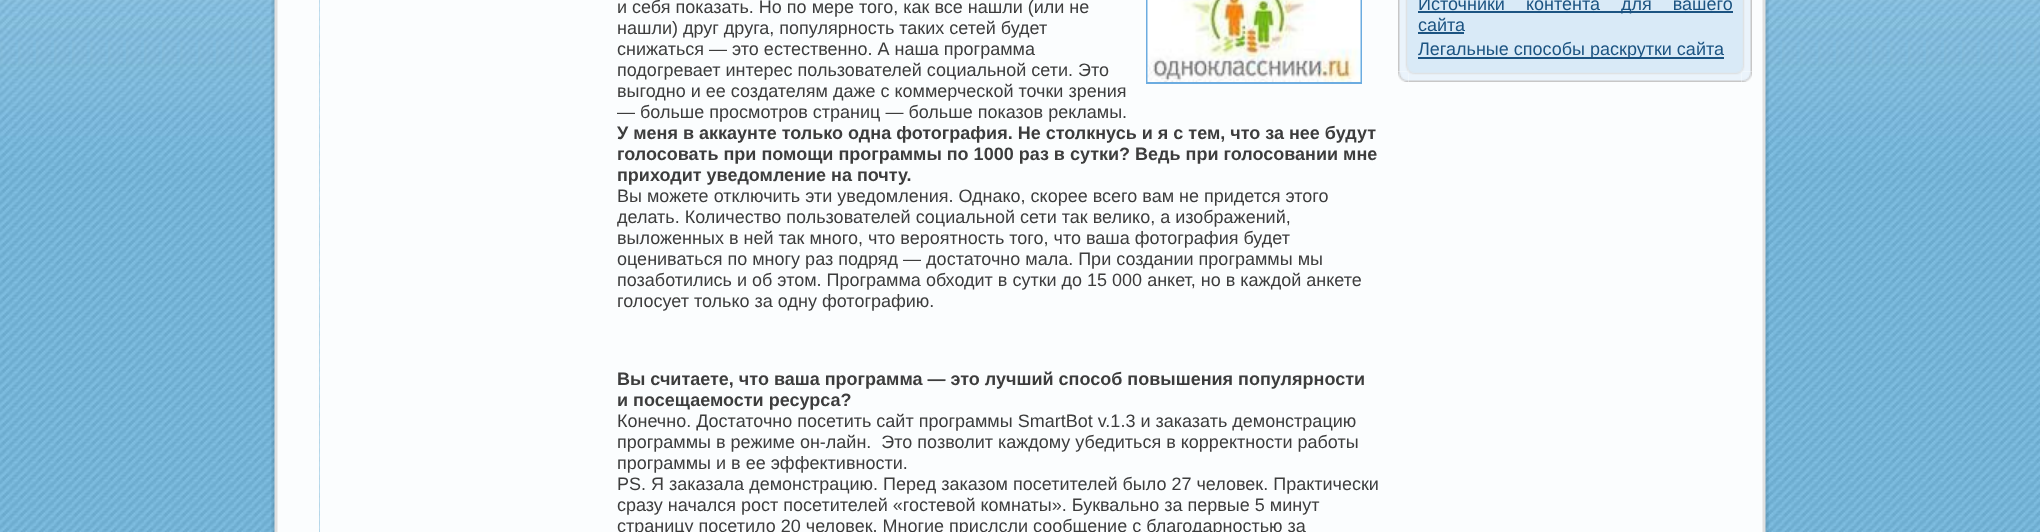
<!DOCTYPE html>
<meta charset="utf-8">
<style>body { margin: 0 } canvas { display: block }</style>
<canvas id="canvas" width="2040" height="532"></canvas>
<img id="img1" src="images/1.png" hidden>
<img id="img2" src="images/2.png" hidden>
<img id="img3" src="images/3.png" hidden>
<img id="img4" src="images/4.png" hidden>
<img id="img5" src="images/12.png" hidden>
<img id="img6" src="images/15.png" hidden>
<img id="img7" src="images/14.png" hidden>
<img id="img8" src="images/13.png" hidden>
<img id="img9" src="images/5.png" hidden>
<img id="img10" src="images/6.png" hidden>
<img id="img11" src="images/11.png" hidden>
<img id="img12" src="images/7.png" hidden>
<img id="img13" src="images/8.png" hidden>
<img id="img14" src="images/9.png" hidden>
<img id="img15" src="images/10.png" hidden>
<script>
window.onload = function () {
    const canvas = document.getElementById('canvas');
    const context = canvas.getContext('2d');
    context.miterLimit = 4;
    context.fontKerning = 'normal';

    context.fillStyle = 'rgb(255, 255, 255)';
    context.fillRect(0, 0, 2040, 532);
    context.drawImage(document.getElementById('img1'), 0, 166, 2040, 366);
    context.drawImage(document.getElementById('img2'), 0, 0, 2040, 166);
    context.drawImage(document.getElementById('img3'), 271, 0, 49, 532);
    context.fillStyle = 'rgb(251, 253, 254)';
    context.fillRect(320, 0, 1401, 532);
    context.strokeStyle = 'rgb(108, 172, 224)';
    context.lineWidth = 2;
    context.strokeRect(1147, -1, 214, 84);
    context.drawImage(document.getElementById('img4'), 1147, 0, 214, 82);
    context.drawImage(document.getElementById('img5'), 1398, 71, 11, 11);
    context.drawImage(document.getElementById('img6'), 1721, 0, 48, 532);
    context.drawImage(document.getElementById('img7'), 1741, 71, 11, 11);
    context.drawImage(document.getElementById('img8'), 1408, 71, 334, 11);
    context.drawImage(document.getElementById('img9'), 1398, 0, 11, 72);
    context.drawImage(document.getElementById('img10'), 1405, 0, 11, 64);
    context.fillStyle = 'rgb(217, 234, 247)';
    context.fillRect(1416, 0, 318, 65);
    context.fillStyle = 'rgb(28, 84, 130)';
    context.fillRect(1418, 11, 315, 2);
    context.fillRect(1418, 32, 46, 2);
    context.fillRect(1418, 57, 306, 2);
    context.drawImage(document.getElementById('img11'), 1742, 0, 10, 72);
    context.drawImage(document.getElementById('img12'), 1734, 0, 11, 64);
    context.fillStyle = 'rgb(234, 243, 251)';
    context.fillRect(1409, 68, 333, 4);
    context.drawImage(document.getElementById('img13'), 1405, 64, 11, 11);
    context.drawImage(document.getElementById('img14'), 1416, 65, 318, 10);
    context.drawImage(document.getElementById('img15'), 1734, 64, 11, 11);
    context.font = '18px Liberation Sans';
    context.fillStyle = 'rgb(61, 61, 61)';
    context.fillText('и себя показать. Но по мере того, как все нашли (или не', 617, 13);
    context.fillText('нашли) друг друга, популярность таких сетей будет', 617, 34);
    context.fillText('снижаться — это естественно. А наша программа', 617, 55);
    context.fillText('подогревает интерес пользователей социальной сети. Это', 617, 76);
    context.fillText('выгодно и ее создателям даже с коммерческой точки зрения', 617, 97);
    context.fillText('— больше просмотров страниц — больше показов рекламы.', 617, 118);
    context.font = 'bold 18px Liberation Sans';
    context.fillText('У меня в аккаунте только одна фотография. Не столкнусь и я с тем, что за нее будут', 617, 139);
    context.fillText('голосовать при помощи программы по 1000 раз в сутки? Ведь при голосовании мне', 617, 160);
    context.fillText('приходит уведомление на почту.', 617, 181);
    context.font = '18px Liberation Sans';
    context.fillText('Вы можете отключить эти уведомления. Однако, скорее всего вам не придется этого', 617, 202);
    context.fillText('делать. Количество пользователей социальной сети так велико, а изображений,', 617, 223);
    context.fillText('выложенных в ней так много, что вероятность того, что ваша фотография будет', 617, 244);
    context.fillText('оцениваться по многу раз подряд — достаточно мала. При создании программы мы', 617, 265);
    context.fillText('позаботились и об этом. Программа обходит в сутки до 15 000 анкет, но в каждой анкете', 617, 286);
    context.fillText('голосует только за одну фотографию.', 617, 307);
    context.font = 'bold 18px Liberation Sans';
    context.fillText('Вы считаете, что ваша программа — это лучший способ повышения популярности', 617, 385);
    context.fillText('и посещаемости ресурса?', 617, 406);
    context.font = '18px Liberation Sans';
    context.fillText('Конечно. Достаточно посетить сайт программы SmartBot v.1.3 и заказать демонстрацию', 617, 427);
    context.fillText('программы в режиме он-лайн.  Это позволит каждому убедиться в корректности работы', 617, 448);
    context.fillText('программы и в ее эффективности.', 617, 469);
    context.fillText('PS. Я заказала демонстрацию. Перед заказом посетителей было 27 человек. Практически', 617, 490);
    context.fillText('сразу начался рост посетителей «гостевой комнаты». Буквально за первые 5 минут', 617, 511);
    context.fillText('страницу посетило 20 человек. Многие прислсли сообщение с благодарностью за', 617, 532);
    context.wordSpacing = '16px';
    context.fillStyle = 'rgb(28, 84, 130)';
    context.fillText('Источники контента для вашего', 1418, 10);
    context.wordSpacing = '0px';
    context.fillText('сайта', 1418, 31);
    context.fillText('Легальные способы раскрутки сайта', 1418, 55);
};
</script>
